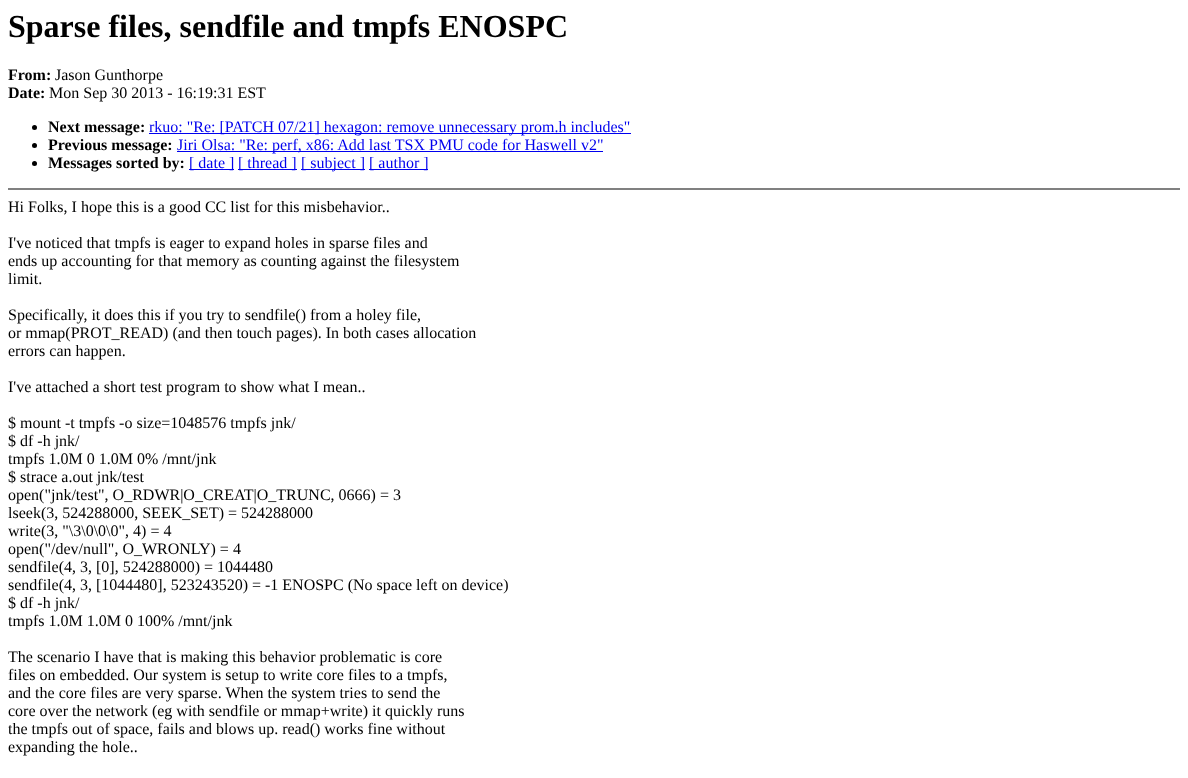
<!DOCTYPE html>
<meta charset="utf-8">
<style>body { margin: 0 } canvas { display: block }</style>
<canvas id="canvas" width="1188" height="778"></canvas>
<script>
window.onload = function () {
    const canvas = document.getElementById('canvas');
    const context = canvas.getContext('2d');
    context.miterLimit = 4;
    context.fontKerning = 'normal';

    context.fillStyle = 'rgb(255, 255, 255)';
    context.fillRect(0, 0, 1188, 778);
    context.fillStyle = 'rgb(0, 0, 0)';
    context.beginPath();
    context.arc(34.5, 127.5, 2.5, 0, 2 * Math.PI);
    context.fill();
    context.fillStyle = 'rgb(0, 0, 238)';
    context.fillRect(149, 133, 482, 1);
    context.fillStyle = 'rgb(0, 0, 0)';
    context.beginPath();
    context.arc(34.5, 145.5, 2.5, 0, 2 * Math.PI);
    context.fill();
    context.fillStyle = 'rgb(0, 0, 238)';
    context.fillRect(177, 151, 426, 1);
    context.fillStyle = 'rgb(0, 0, 0)';
    context.beginPath();
    context.arc(34.5, 163.5, 2.5, 0, 2 * Math.PI);
    context.fill();
    context.fillStyle = 'rgb(0, 0, 238)';
    context.fillRect(189, 169, 45, 1);
    context.fillRect(238, 169, 59, 1);
    context.fillRect(301, 169, 64, 1);
    context.fillRect(369, 169, 59, 1);
    context.fillStyle = 'rgb(128, 128, 128)';
    context.fillRect(8, 188, 1172, 2);
    context.font = 'bold 32px Liberation Serif';
    context.fillStyle = 'rgb(0, 0, 0)';
    context.fillText('Sparse files, sendfile and tmpfs ENOSPC', 8, 37);
    context.font = 'bold 16px Liberation Serif';
    context.fillText('From:', 8, 80);
    context.font = '16px Liberation Serif';
    context.fillText('Jason Gunthorpe', 55, 80);
    context.font = 'bold 16px Liberation Serif';
    context.fillText('Date:', 8, 98);
    context.font = '16px Liberation Serif';
    context.fillText('Mon Sep 30 2013 - 16:19:31 EST', 49, 98);
    context.font = 'bold 16px Liberation Serif';
    context.fillText('Next message:', 48, 132);
    context.font = '16px Liberation Serif';
    context.fillStyle = 'rgb(0, 0, 238)';
    context.fillText('rkuo: "Re: [PATCH 07/21] hexagon: remove unnecessary prom.h includes"', 149, 132);
    context.font = 'bold 16px Liberation Serif';
    context.fillStyle = 'rgb(0, 0, 0)';
    context.fillText('Previous message:', 48, 150);
    context.font = '16px Liberation Serif';
    context.fillStyle = 'rgb(0, 0, 238)';
    context.fillText('Jiri Olsa: "Re: perf, x86: Add last TSX PMU code for Haswell v2"', 177, 150);
    context.font = 'bold 16px Liberation Serif';
    context.fillStyle = 'rgb(0, 0, 0)';
    context.fillText('Messages sorted by:', 48, 168);
    context.font = '16px Liberation Serif';
    context.fillStyle = 'rgb(0, 0, 238)';
    context.fillText('[ date ]', 189, 168);
    context.fillText('[ thread ]', 238, 168);
    context.fillText('[ subject ]', 301, 168);
    context.fillText('[ author ]', 369, 168);
    context.fillStyle = 'rgb(0, 0, 0)';
    context.fillText('Hi Folks, I hope this is a good CC list for this misbehavior..', 8, 212);
    context.fillText('I\'ve noticed that tmpfs is eager to expand holes in sparse files and', 8, 248);
    context.fillText('ends up accounting for that memory as counting against the filesystem', 8, 266);
    context.fillText('limit.', 8, 284);
    context.fillText('Specifically, it does this if you try to sendfile() from a holey file,', 8, 320);
    context.fillText('or mmap(PROT_READ) (and then touch pages). In both cases allocation', 8, 338);
    context.fillText('errors can happen.', 8, 356);
    context.fillText('I\'ve attached a short test program to show what I mean..', 8, 392);
    context.fillText('$ mount -t tmpfs -o size=1048576 tmpfs jnk/', 8, 428);
    context.fillText('$ df -h jnk/', 8, 446);
    context.fillText('tmpfs 1.0M 0 1.0M 0% /mnt/jnk', 8, 464);
    context.fillText('$ strace a.out jnk/test', 8, 482);
    context.fillText('open("jnk/test", O_RDWR|O_CREAT|O_TRUNC, 0666) = 3', 8, 500);
    context.fillText('lseek(3, 524288000, SEEK_SET) = 524288000', 8, 518);
    context.fillText('write(3, "\\3\\0\\0\\0", 4) = 4', 8, 536);
    context.fillText('open("/dev/null", O_WRONLY) = 4', 8, 554);
    context.fillText('sendfile(4, 3, [0], 524288000) = 1044480', 8, 572);
    context.fillText('sendfile(4, 3, [1044480], 523243520) = -1 ENOSPC (No space left on device)', 8, 590);
    context.fillText('$ df -h jnk/', 8, 608);
    context.fillText('tmpfs 1.0M 1.0M 0 100% /mnt/jnk', 8, 626);
    context.fillText('The scenario I have that is making this behavior problematic is core', 8, 662);
    context.fillText('files on embedded. Our system is setup to write core files to a tmpfs,', 8, 680);
    context.fillText('and the core files are very sparse. When the system tries to send the', 8, 698);
    context.fillText('core over the network (eg with sendfile or mmap+write) it quickly runs', 8, 716);
    context.fillText('the tmpfs out of space, fails and blows up. read() works fine without', 8, 734);
    context.fillText('expanding the hole..', 8, 752);
};
</script>
